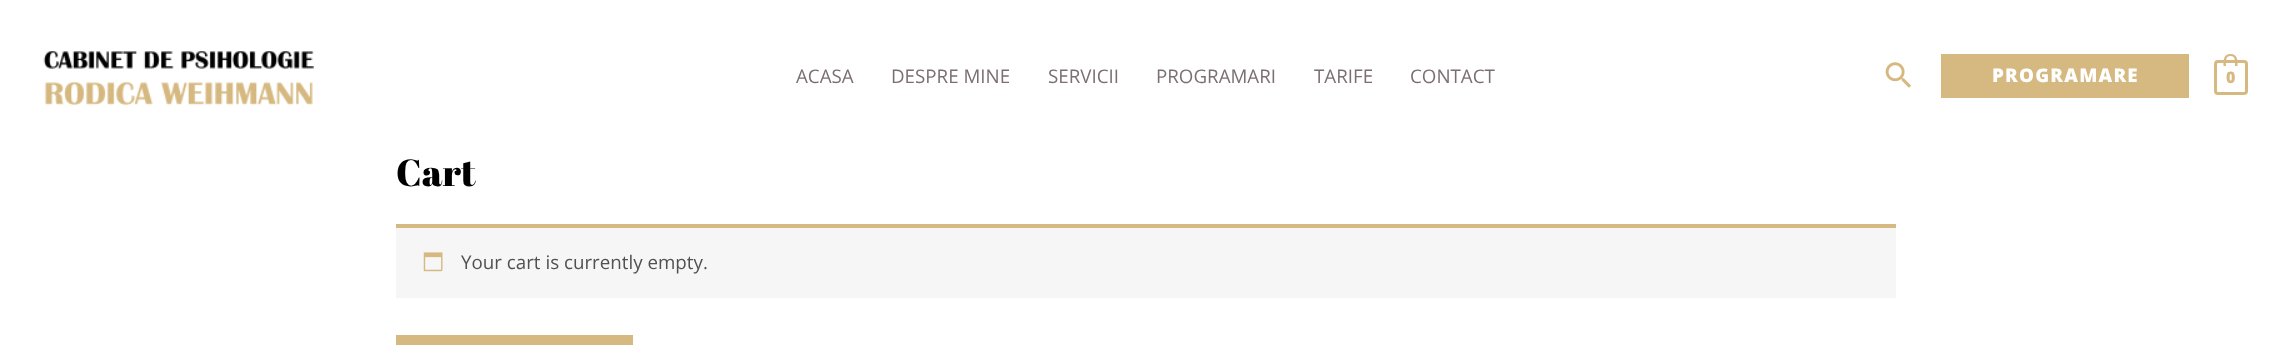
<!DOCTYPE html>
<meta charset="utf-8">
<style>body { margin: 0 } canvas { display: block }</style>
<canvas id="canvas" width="2291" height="345"></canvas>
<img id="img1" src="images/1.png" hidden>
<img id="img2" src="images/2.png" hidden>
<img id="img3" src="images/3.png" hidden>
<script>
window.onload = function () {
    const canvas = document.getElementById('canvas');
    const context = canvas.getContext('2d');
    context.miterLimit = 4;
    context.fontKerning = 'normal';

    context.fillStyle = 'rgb(255, 255, 255)';
    context.fillRect(0, 0, 2291, 345);
    context.drawImage(document.getElementById('img1'), 43, 51, 271, 55);
    context.drawImage(document.getElementById('img2'), 1885, 62, 26, 26);
    context.fillStyle = 'rgb(214, 185, 129)';
    context.fillRect(1941, 54, 248, 44);
    context.beginPath();
    context.roundRect(2215.5, 61.5, 31, 32, 2.5);
    context.strokeStyle = 'rgb(214, 185, 129)';
    context.lineWidth = 3;
    context.stroke();
    context.beginPath();
    context.moveTo(2230.5, 54);
    context.bezierCurveTo(2238, 54, 2237.5, 61, 2237.5, 66);
    context.lineTo(2223.5, 66);
    context.bezierCurveTo(2223.5, 61, 2223, 54, 2230.5, 54);
    context.closePath();
    context.moveTo(2230.5, 56);
    context.bezierCurveTo(2236, 56, 2235, 62.5, 2235, 66);
    context.lineTo(2226, 66);
    context.bezierCurveTo(2226, 62.5, 2225, 56, 2230.5, 56);
    context.closePath();
    context.fill('evenodd');
    context.fillStyle = 'rgb(247, 246, 247)';
    context.fillRect(396, 228, 1500, 70);
    context.fillStyle = 'rgb(214, 185, 129)';
    context.fillRect(396, 224, 1500, 4);
    context.drawImage(document.getElementById('img3'), 423, 252, 20, 20);
    context.fillRect(396, 335, 237, 10);
    context.font = '18.75px Open Sans';
    context.fillStyle = 'rgb(124, 111, 115)';
    context.fillText('ACASA', 796, 83);
    context.fillText('DESPRE MINE', 891, 83);
    context.fillText('SERVICII', 1048, 83);
    context.fillText('PROGRAMARI', 1156, 83);
    context.fillText('TARIFE', 1314, 83);
    context.fillText('CONTACT', 1410, 83);
    context.letterSpacing = '1.25px';
    context.font = '800 18.75px Open Sans';
    context.fillStyle = 'rgb(255, 255, 255)';
    context.fillText('PROGRAMARE', 1992, 82);
    context.letterSpacing = '0px';
    context.font = '800 16px Open Sans';
    context.fillStyle = 'rgb(214, 185, 129)';
    context.fillText('0', 2226, 83);
    context.font = '37.5px Abril Fatface';
    context.fillStyle = 'rgb(0, 0, 0)';
    context.fillText('Cart', 396, 186);
    context.font = '18.75px Open Sans';
    context.fillStyle = 'rgb(81, 81, 81)';
    context.fillText('Your cart is currently empty.', 461, 269);
};
</script>
